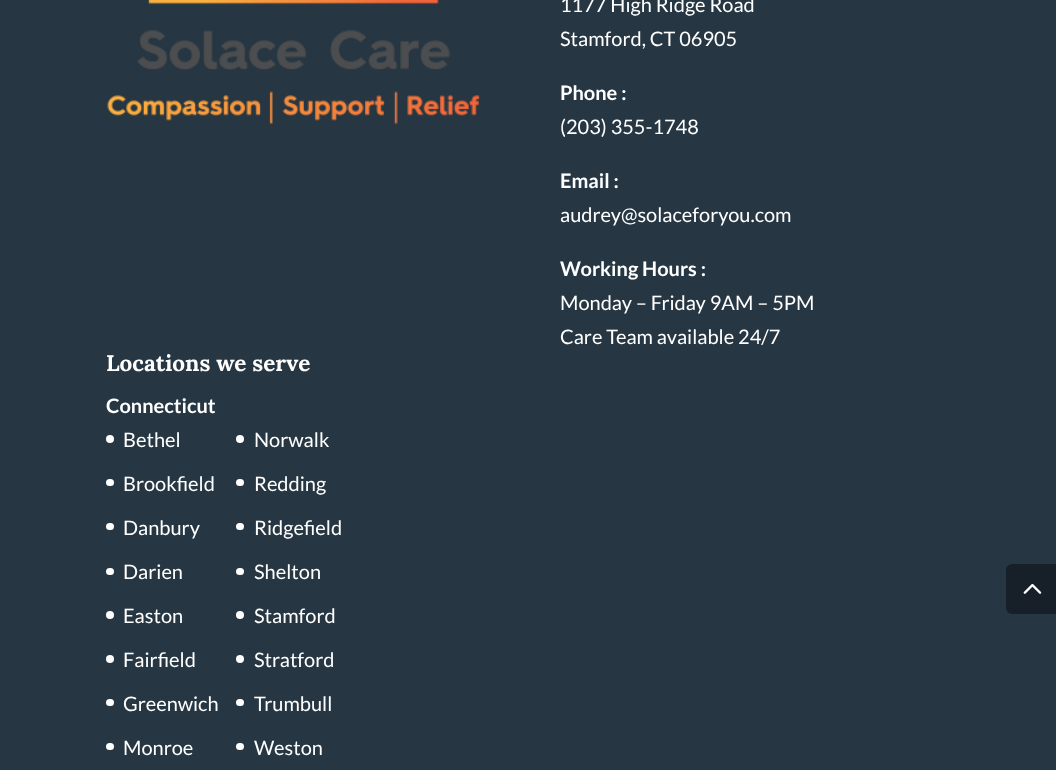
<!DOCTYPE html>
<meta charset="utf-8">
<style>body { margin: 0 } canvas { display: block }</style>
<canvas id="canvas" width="1056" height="770"></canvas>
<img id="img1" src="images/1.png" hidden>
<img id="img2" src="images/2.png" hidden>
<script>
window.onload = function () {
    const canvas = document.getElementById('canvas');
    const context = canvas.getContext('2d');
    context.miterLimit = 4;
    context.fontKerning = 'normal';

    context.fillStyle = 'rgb(38, 54, 66)';
    context.fillRect(0, 0, 1056, 770);
    context.drawImage(document.getElementById('img1'), 107, 0, 373, 125);
    context.fillStyle = 'rgb(255, 255, 255)';
    context.beginPath();
    context.arc(110, 439, 4, 0, 2 * Math.PI);
    context.fill();
    context.beginPath();
    context.roundRect(106, 479, 8, 7, 3.5);
    context.fill();
    context.beginPath();
    context.roundRect(106, 523, 8, 7, 3.5);
    context.fill();
    context.beginPath();
    context.roundRect(106, 568, 8, 7, 3.5);
    context.fill();
    context.beginPath();
    context.arc(110, 615, 4, 0, 2 * Math.PI);
    context.fill();
    context.beginPath();
    context.arc(110, 659, 4, 0, 2 * Math.PI);
    context.fill();
    context.beginPath();
    context.roundRect(106, 699, 8, 7, 3.5);
    context.fill();
    context.beginPath();
    context.roundRect(106, 743, 8, 7, 3.5);
    context.fill();
    context.beginPath();
    context.arc(240, 439, 4, 0, 2 * Math.PI);
    context.fill();
    context.beginPath();
    context.roundRect(236, 479, 8, 7, 3.5);
    context.fill();
    context.beginPath();
    context.roundRect(236, 523, 8, 7, 3.5);
    context.fill();
    context.beginPath();
    context.roundRect(236, 568, 8, 7, 3.5);
    context.fill();
    context.beginPath();
    context.arc(240, 615, 4, 0, 2 * Math.PI);
    context.fill();
    context.beginPath();
    context.arc(240, 659, 4, 0, 2 * Math.PI);
    context.fill();
    context.beginPath();
    context.roundRect(236, 699, 8, 7, 3.5);
    context.fill();
    context.beginPath();
    context.roundRect(236, 743, 8, 7, 3.5);
    context.fill();
    context.fillStyle = 'rgb(23, 32, 40)';
    context.beginPath();
    context.roundRect(1006, 564, 50, 50, [6, 0, 0, 6]);
    context.fill();
    context.drawImage(document.getElementById('img2'), 1023, 583, 19, 11);
    context.font = '20px Lato';
    context.fillStyle = 'rgb(255, 255, 255)';
    context.fillText('1177 High Ridge Road', 560, 12);
    context.fillText('Stamford, CT 06905', 560, 46);
    context.font = 'bold 20px Lato';
    context.fillText('Phone :', 560, 100);
    context.font = '20px Lato';
    context.fillText('(203) 355-1748', 560, 134);
    context.font = 'bold 20px Lato';
    context.fillText('Email :', 560, 188);
    context.font = '20px Lato';
    context.fillText('audrey@solaceforyou.com', 560, 222);
    context.font = 'bold 20px Lato';
    context.fillText('Working Hours :', 560, 276);
    context.font = '20px Lato';
    context.fillText('Monday – Friday 9AM – 5PM', 560, 310);
    context.fillText('Care Team available 24/7', 560, 344);
    context.font = 'bold 22.5px Lora';
    context.fillText('Locations we serve', 106, 371);
    context.font = 'bold 20px Lato';
    context.fillText('Connecticut', 106, 413);
    context.font = '20px Lato';
    context.fillText('Bethel', 123, 447);
    context.fillText('Brookfield', 123, 491);
    context.fillText('Danbury', 123, 535);
    context.fillText('Darien', 123, 579);
    context.fillText('Easton', 123, 623);
    context.fillText('Fairfield', 123, 667);
    context.fillText('Greenwich', 123, 711);
    context.fillText('Monroe', 123, 755);
    context.fillText('Norwalk', 254, 447);
    context.fillText('Redding', 254, 491);
    context.fillText('Ridgefield', 254, 535);
    context.fillText('Shelton', 254, 579);
    context.fillText('Stamford', 254, 623);
    context.fillText('Stratford', 254, 667);
    context.fillText('Trumbull', 254, 711);
    context.fillText('Weston', 254, 755);
};
</script>
